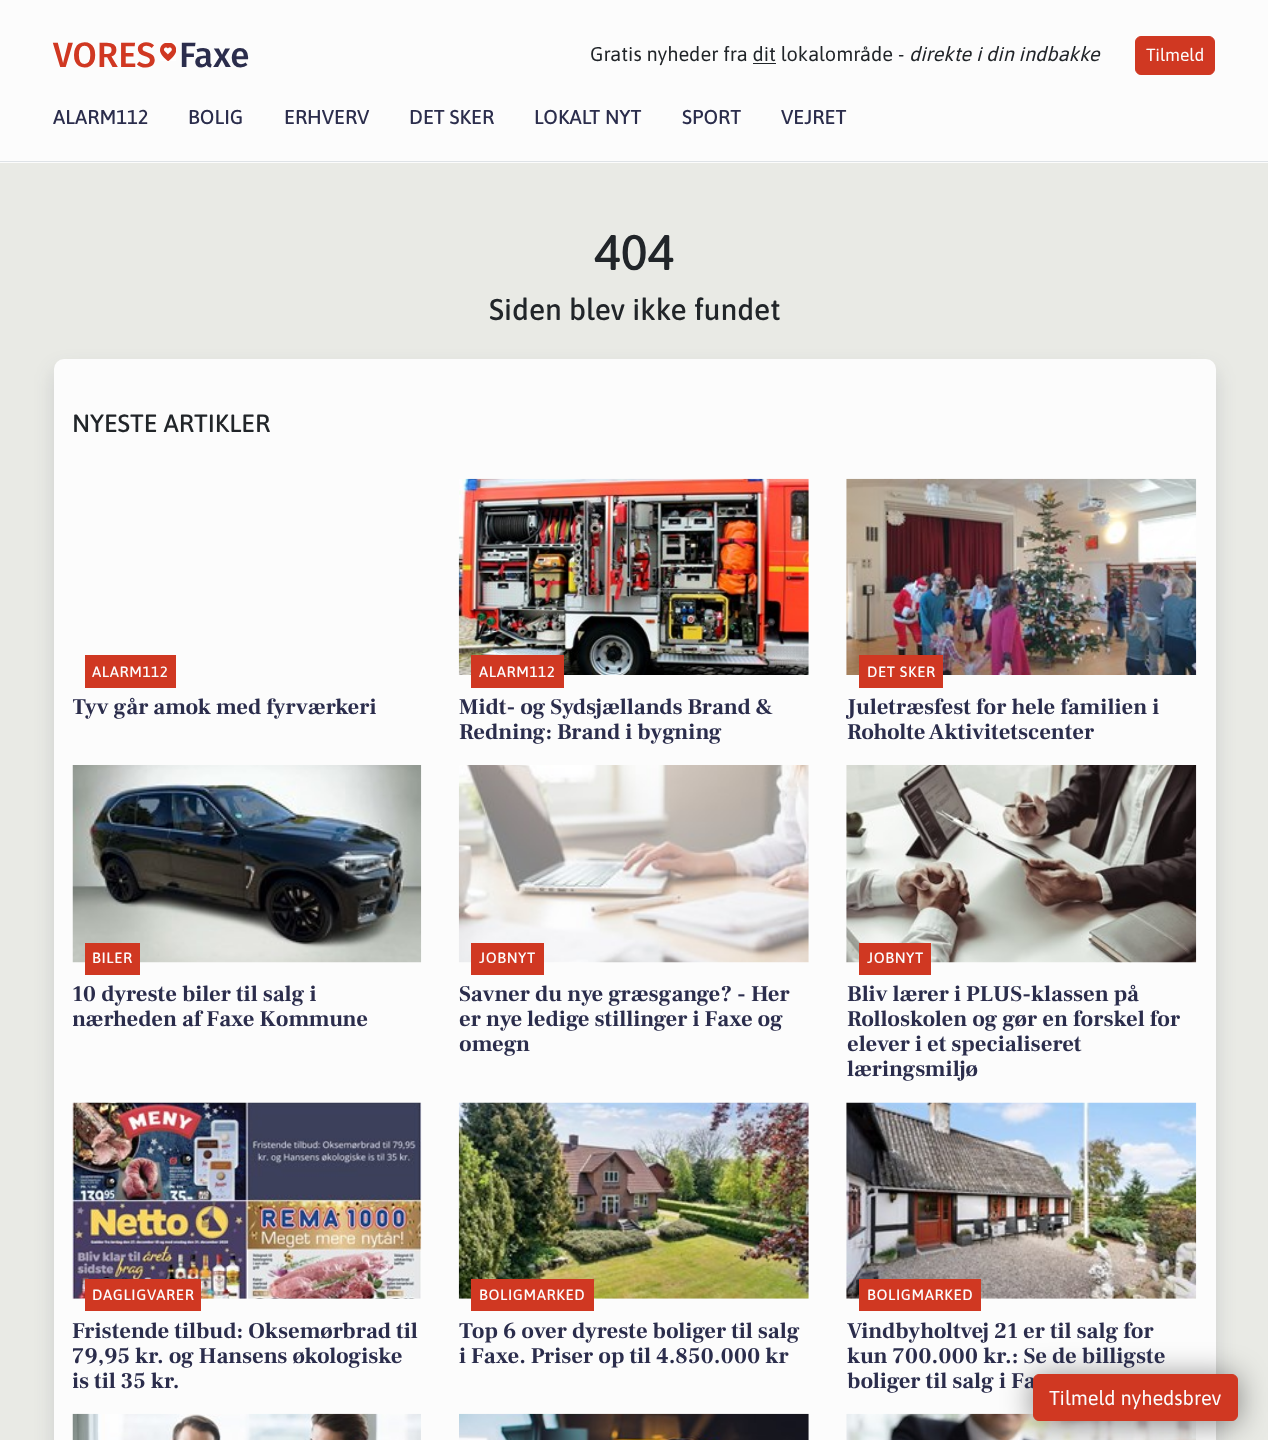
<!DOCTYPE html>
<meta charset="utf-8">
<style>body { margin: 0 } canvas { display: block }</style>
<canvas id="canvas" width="1268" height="1440"></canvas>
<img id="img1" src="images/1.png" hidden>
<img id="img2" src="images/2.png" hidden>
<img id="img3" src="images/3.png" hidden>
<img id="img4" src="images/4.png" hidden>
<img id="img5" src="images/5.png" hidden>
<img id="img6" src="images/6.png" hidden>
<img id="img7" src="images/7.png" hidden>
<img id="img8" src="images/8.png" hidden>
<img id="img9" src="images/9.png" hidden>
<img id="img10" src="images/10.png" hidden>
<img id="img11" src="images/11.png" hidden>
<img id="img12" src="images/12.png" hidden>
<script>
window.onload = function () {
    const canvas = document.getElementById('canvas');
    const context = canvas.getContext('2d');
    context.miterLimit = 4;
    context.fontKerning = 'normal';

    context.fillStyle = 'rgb(233, 234, 229)';
    context.fillRect(0, 0, 1268, 1440);
    context.fillStyle = 'rgb(252, 252, 252)';
    context.fillRect(0, 0, 1268, 163);
    context.fillStyle = 'rgb(222, 226, 230)';
    context.fillRect(0, 161, 1268, 1);
    context.drawImage(document.getElementById('img1'), 160, 43, 16, 18);
    context.fillStyle = 'rgb(33, 37, 41)';
    context.fillRect(753, 63, 23, 1);
    context.fillStyle = 'rgb(208, 56, 34)';
    context.beginPath();
    context.roundRect(1135.5, 36.5, 79, 38, 5.5);
    context.fill();
    context.strokeStyle = 'rgb(208, 56, 34)';
    context.stroke();
    context.fillStyle = 'rgba(43, 45, 76, 0.15)';
    context.filter = 'blur(10px)';
    context.beginPath();
    context.roundRect(54, 369, 1162, 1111, 10);
    context.fill();
    context.filter = 'none';
    context.fillStyle = 'rgb(252, 252, 252)';
    context.beginPath();
    context.roundRect(54, 359, 1162, 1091, 10);
    context.fill();
    context.fillStyle = 'rgb(208, 56, 34)';
    context.fillRect(85, 655, 91, 33);
    context.drawImage(document.getElementById('img2'), 458, 478, 351, 197);
    context.fillRect(471, 655, 93, 33);
    context.drawImage(document.getElementById('img3'), 846, 478, 351, 197);
    context.fillRect(859, 655, 84, 33);
    context.drawImage(document.getElementById('img4'), 72, 765, 350, 198);
    context.fillRect(85, 943, 55, 32);
    context.drawImage(document.getElementById('img5'), 458, 765, 351, 198);
    context.fillRect(471, 943, 73, 32);
    context.drawImage(document.getElementById('img6'), 846, 765, 351, 198);
    context.fillRect(859, 943, 72, 32);
    context.drawImage(document.getElementById('img7'), 72, 1102, 350, 197);
    context.fillRect(85, 1279, 116, 32);
    context.drawImage(document.getElementById('img8'), 458, 1102, 351, 197);
    context.fillRect(471, 1279, 123, 32);
    context.drawImage(document.getElementById('img9'), 846, 1102, 351, 197);
    context.fillRect(859, 1279, 122, 32);
    context.drawImage(document.getElementById('img10'), 72, 1413, 349, 27);
    context.drawImage(document.getElementById('img11'), 459, 1413, 350, 27);
    context.drawImage(document.getElementById('img12'), 846, 1413, 350, 27);
    context.fillStyle = 'rgba(0, 0, 0, 0.45)';
    context.filter = 'blur(15px)';
    context.beginPath();
    context.roundRect(1033, 1376, 205, 48, 6);
    context.fill();
    context.filter = 'none';
    context.font = '500 35px Fira Sans';
    context.fillStyle = 'rgb(208, 56, 34)';
    context.fillText('VORES', 53, 67);
    context.fillStyle = 'rgb(43, 45, 76)';
    context.fillText('Faxe', 179, 67);
    context.font = '20px Asap';
    context.fillStyle = 'rgb(33, 37, 41)';
    context.fillText('Gratis nyheder fra dit lokalområde -', 590, 61);
    context.font = 'italic 20px Asap';
    context.fillText('direkte i din indbakke', 909, 61);
    context.font = '17.5px Asap';
    context.fillStyle = 'rgb(252, 252, 252)';
    context.fillText('Tilmeld', 1146, 61);
    context.font = '500 20px Asap';
    context.fillStyle = 'rgb(43, 45, 76)';
    context.fillText('ALARM112', 53, 124);
    context.fillText('BOLIG', 188, 124);
    context.fillText('ERHVERV', 284, 124);
    context.fillText('DET SKER', 409, 124);
    context.fillText('LOKALT NYT', 534, 124);
    context.fillText('SPORT', 682, 124);
    context.fillText('VEJRET', 781, 124);
    context.font = '500 50px Asap';
    context.fillStyle = 'rgb(33, 37, 41)';
    context.fillText('404', 594, 270);
    context.font = '500 30px Asap';
    context.fillText('Siden blev ikke fundet', 489, 320);
    context.font = '500 25px Asap';
    context.fillText('NYESTE ARTIKLER', 72, 432);
    context.letterSpacing = '0.6px';
    context.font = '500 15px Asap';
    context.fillStyle = 'rgb(252, 252, 252)';
    context.fillText('ALARM112', 92, 677);
    context.save();
    context.beginPath();
    context.rect(73, 695, 348, 25);
    context.clip();
    context.letterSpacing = '0px';
    context.font = 'bold 22.5px Frank Ruhl Libre';
    context.fillStyle = 'rgb(43, 45, 76)';
    context.fillText('Tyv går amok med fyrværkeri', 72, 714);
    context.restore();
    context.fillText('ALARM112', 479, 677);
    context.letterSpacing = '0px';
    context.font = 'bold 22.5px Frank Ruhl Libre';
    context.fillStyle = 'rgb(43, 45, 76)';
    context.fillText('Midt- og Sydsjællands Brand &', 459, 714);
    context.fillText('Redning: Brand i bygning', 459, 739);
    context.letterSpacing = '0.6px';
    context.font = '500 15px Asap';
    context.fillStyle = 'rgb(252, 252, 252)';
    context.fillText('DET SKER', 867, 677);
    context.save();
    context.beginPath();
    context.rect(846, 695, 350, 50);
    context.clip();
    context.letterSpacing = '0px';
    context.font = 'bold 22.5px Frank Ruhl Libre';
    context.fillStyle = 'rgb(43, 45, 76)';
    context.fillText('Juletræsfest for hele familien i', 847, 714);
    context.restore();
    context.letterSpacing = '0px';
    context.font = 'bold 22.5px Frank Ruhl Libre';
    context.fillStyle = 'rgb(43, 45, 76)';
    context.fillText('Roholte Aktivitetscenter', 847, 739);
    context.letterSpacing = '0.6px';
    context.font = '500 15px Asap';
    context.fillStyle = 'rgb(252, 252, 252)';
    context.fillText('BILER', 92, 963);
    context.letterSpacing = '0px';
    context.font = 'bold 22.5px Frank Ruhl Libre';
    context.fillStyle = 'rgb(43, 45, 76)';
    context.fillText('10 dyreste biler til salg i', 72, 1001);
    context.save();
    context.beginPath();
    context.rect(73, 983, 348, 50);
    context.clip();
    context.fillText('nærheden af Faxe Kommune', 72, 1026);
    context.restore();
    context.letterSpacing = '0.6px';
    context.font = '500 15px Asap';
    context.fillStyle = 'rgb(252, 252, 252)';
    context.fillText('JOBNYT', 479, 963);
    context.letterSpacing = '0px';
    context.font = 'bold 22.5px Frank Ruhl Libre';
    context.fillStyle = 'rgb(43, 45, 76)';
    context.fillText('Savner du nye græsgange? - Her', 459, 1001);
    context.fillText('er nye ledige stillinger i Faxe og', 459, 1026);
    context.fillText('omegn', 459, 1051);
    context.letterSpacing = '0.6px';
    context.font = '500 15px Asap';
    context.fillStyle = 'rgb(252, 252, 252)';
    context.fillText('JOBNYT', 867, 963);
    context.letterSpacing = '0px';
    context.font = 'bold 22.5px Frank Ruhl Libre';
    context.fillStyle = 'rgb(43, 45, 76)';
    context.fillText('Bliv lærer i PLUS-klassen på', 847, 1001);
    context.fillText('Rolloskolen og gør en forskel for', 847, 1026);
    context.fillText('elever i et specialiseret', 847, 1051);
    context.fillText('læringsmiljø', 847, 1076);
    context.letterSpacing = '0.6px';
    context.font = '500 15px Asap';
    context.fillStyle = 'rgb(252, 252, 252)';
    context.fillText('DAGLIGVARER', 92, 1300);
    context.letterSpacing = '0px';
    context.font = 'bold 22.5px Frank Ruhl Libre';
    context.fillStyle = 'rgb(43, 45, 76)';
    context.fillText('Fristende tilbud: Oksemørbrad til', 72, 1338);
    context.save();
    context.beginPath();
    context.rect(73, 1319, 348, 75);
    context.clip();
    context.fillText('79,95 kr. og Hansens økologiske', 72, 1363);
    context.fillText('is til 35 kr.', 72, 1388);
    context.restore();
    context.letterSpacing = '0.6px';
    context.font = '500 15px Asap';
    context.fillStyle = 'rgb(252, 252, 252)';
    context.fillText('BOLIGMARKED', 479, 1300);
    context.letterSpacing = '0px';
    context.font = 'bold 22.5px Frank Ruhl Libre';
    context.fillStyle = 'rgb(43, 45, 76)';
    context.fillText('Top 6 over dyreste boliger til salg', 459, 1338);
    context.fillText('i Faxe. Priser op til 4.850.000 kr', 459, 1363);
    context.letterSpacing = '0.6px';
    context.font = '500 15px Asap';
    context.fillStyle = 'rgb(252, 252, 252)';
    context.fillText('BOLIGMARKED', 867, 1300);
    context.letterSpacing = '0px';
    context.font = 'bold 22.5px Frank Ruhl Libre';
    context.fillStyle = 'rgb(43, 45, 76)';
    context.fillText('Vindbyholtvej 21 er til salg for', 847, 1338);
    context.fillText('kun 700.000 kr.: Se de billigste', 847, 1363);
    context.fillText('boliger til salg i Fa', 847, 1388);
    context.fillStyle = 'rgb(208, 56, 34)';
    context.beginPath();
    context.roundRect(1033.5, 1374.5, 204, 46, 5.5);
    context.fill();
    context.stroke();
    context.font = '20px Asap';
    context.fillStyle = 'rgb(252, 252, 252)';
    context.fillText('Tilmeld nyhedsbrev', 1049, 1405);
};
</script>
